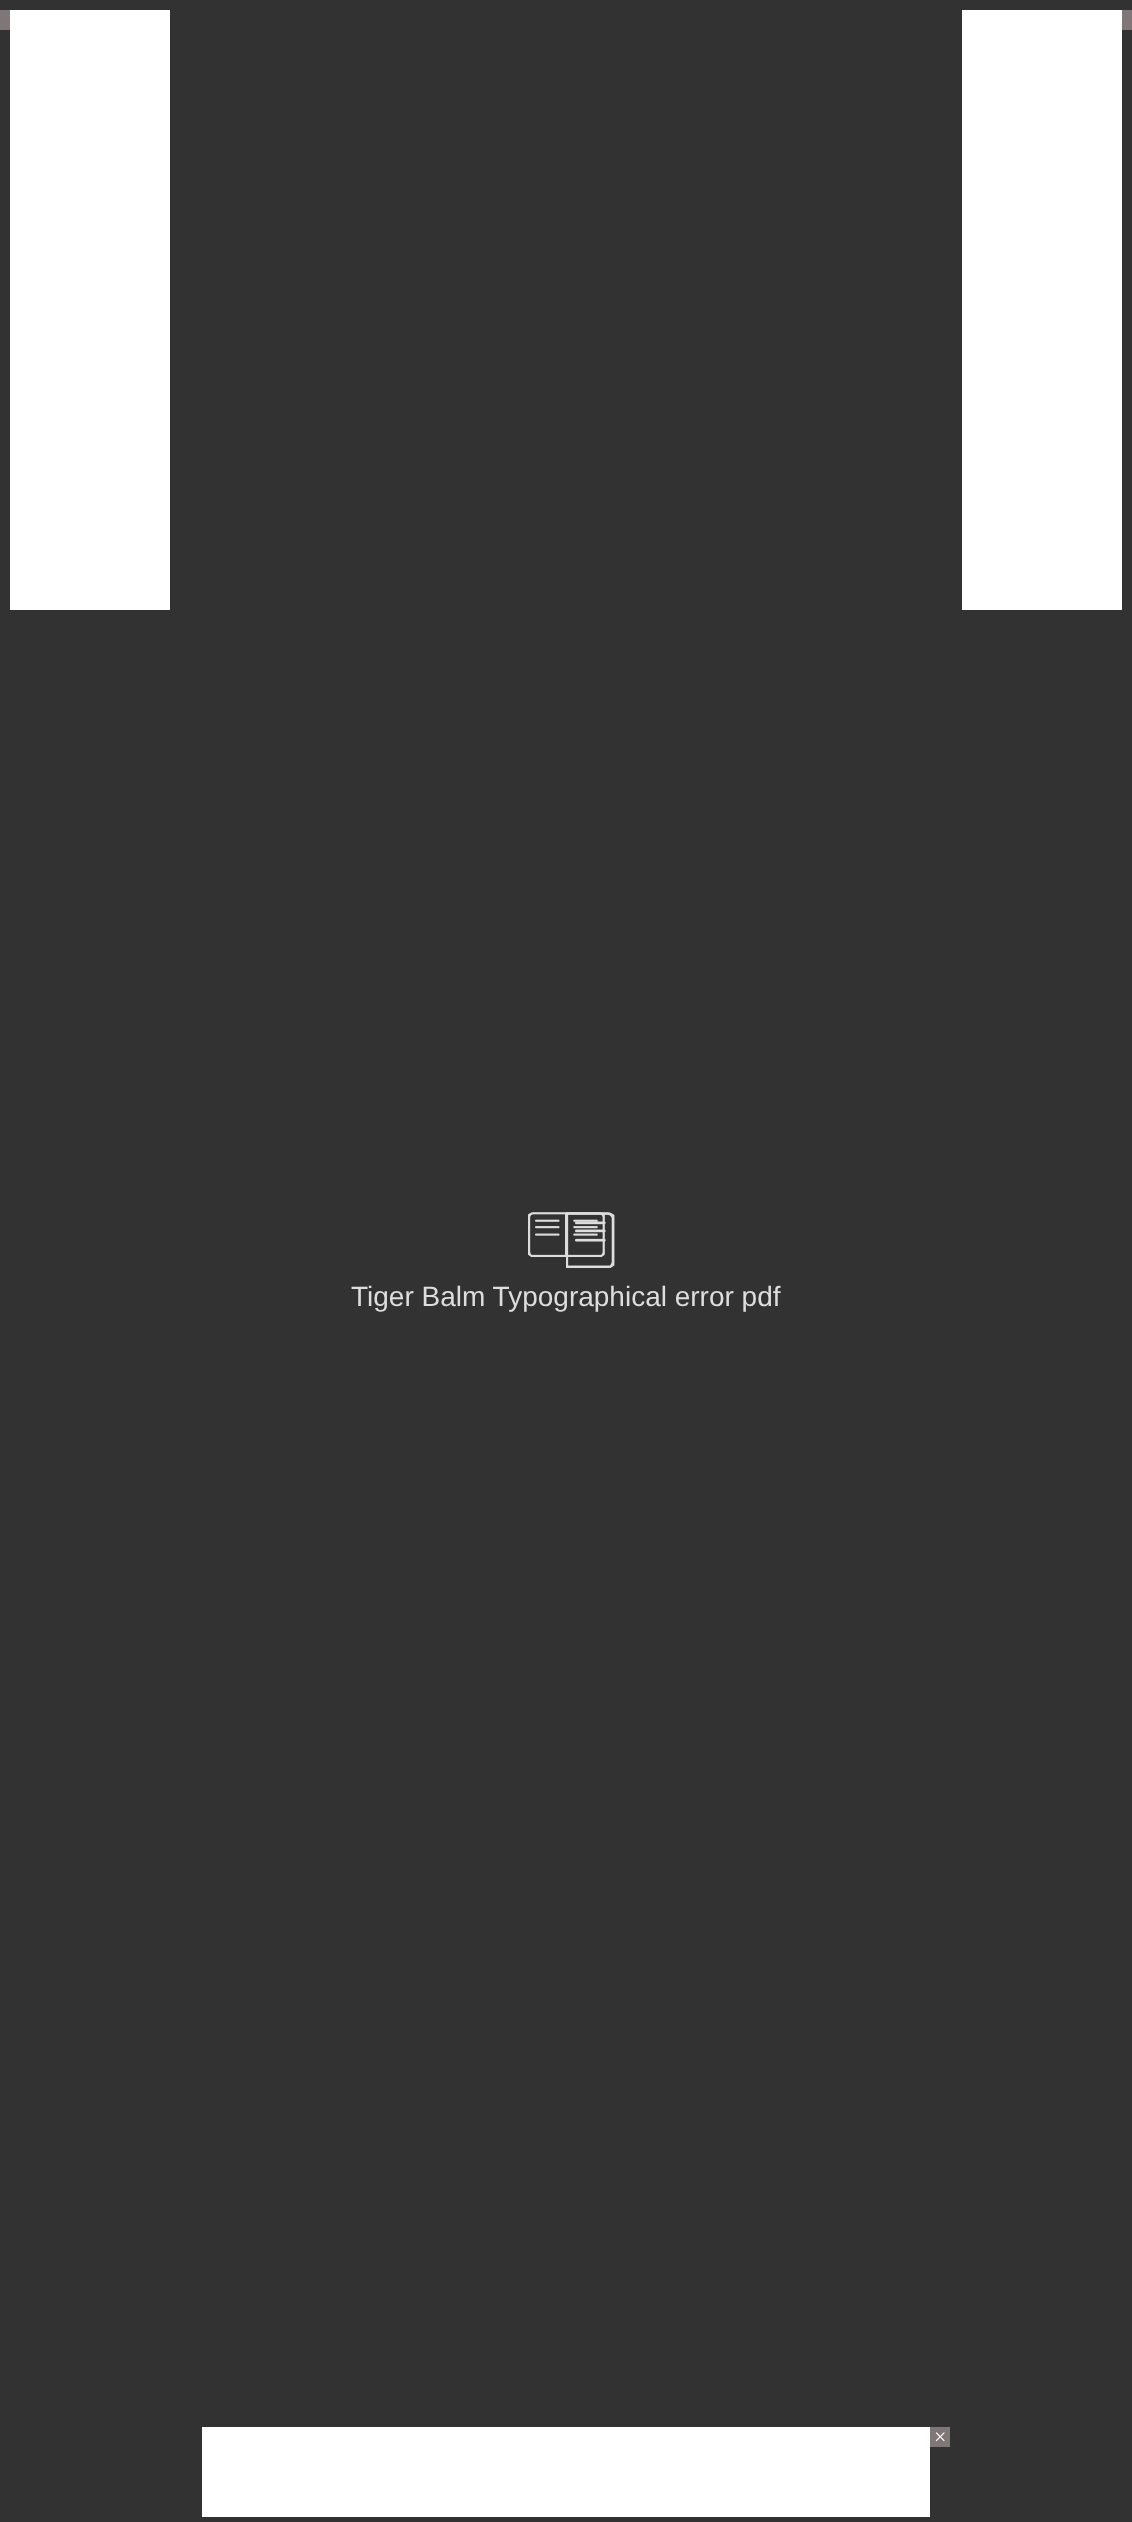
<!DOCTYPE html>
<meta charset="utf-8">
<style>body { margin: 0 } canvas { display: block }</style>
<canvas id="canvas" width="1132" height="2522"></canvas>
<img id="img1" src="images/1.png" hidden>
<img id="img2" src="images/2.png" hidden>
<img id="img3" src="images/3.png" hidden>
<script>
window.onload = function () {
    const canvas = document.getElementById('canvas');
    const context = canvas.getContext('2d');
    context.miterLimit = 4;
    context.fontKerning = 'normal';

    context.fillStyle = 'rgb(50, 50, 50)';
    context.fillRect(0, 0, 1132, 2522);
    context.fillStyle = 'rgb(255, 255, 255)';
    context.fillRect(10, 10, 160, 600);
    context.fillStyle = 'rgb(127, 119, 119)';
    context.fillRect(0, 10, 10, 20);
    context.fillStyle = 'rgb(255, 255, 255)';
    context.fillRect(962, 10, 160, 600);
    context.fillStyle = 'rgb(127, 119, 119)';
    context.fillRect(1122, 10, 10, 20);
    context.drawImage(document.getElementById('img1'), 528, 1212, 38, 45);
    context.drawImage(document.getElementById('img2'), 566, 1212, 49, 56);
    context.drawImage(document.getElementById('img3'), 566, 1212, 39, 45);
    context.fillStyle = 'rgb(255, 255, 255)';
    context.fillRect(202, 2427, 728, 90);
    context.fillStyle = 'rgb(127, 119, 119)';
    context.fillRect(930, 2427, 20, 20);
    context.font = '28px Liberation Sans';
    context.fillStyle = 'rgb(221, 221, 221)';
    context.fillText('Tiger Balm Typographical error pdf', 351, 1306);
    context.font = '22px Liberation Serif';
    context.fillStyle = 'rgb(255, 255, 255)';
    context.fillText('×', 934, 2444);
};
</script>
